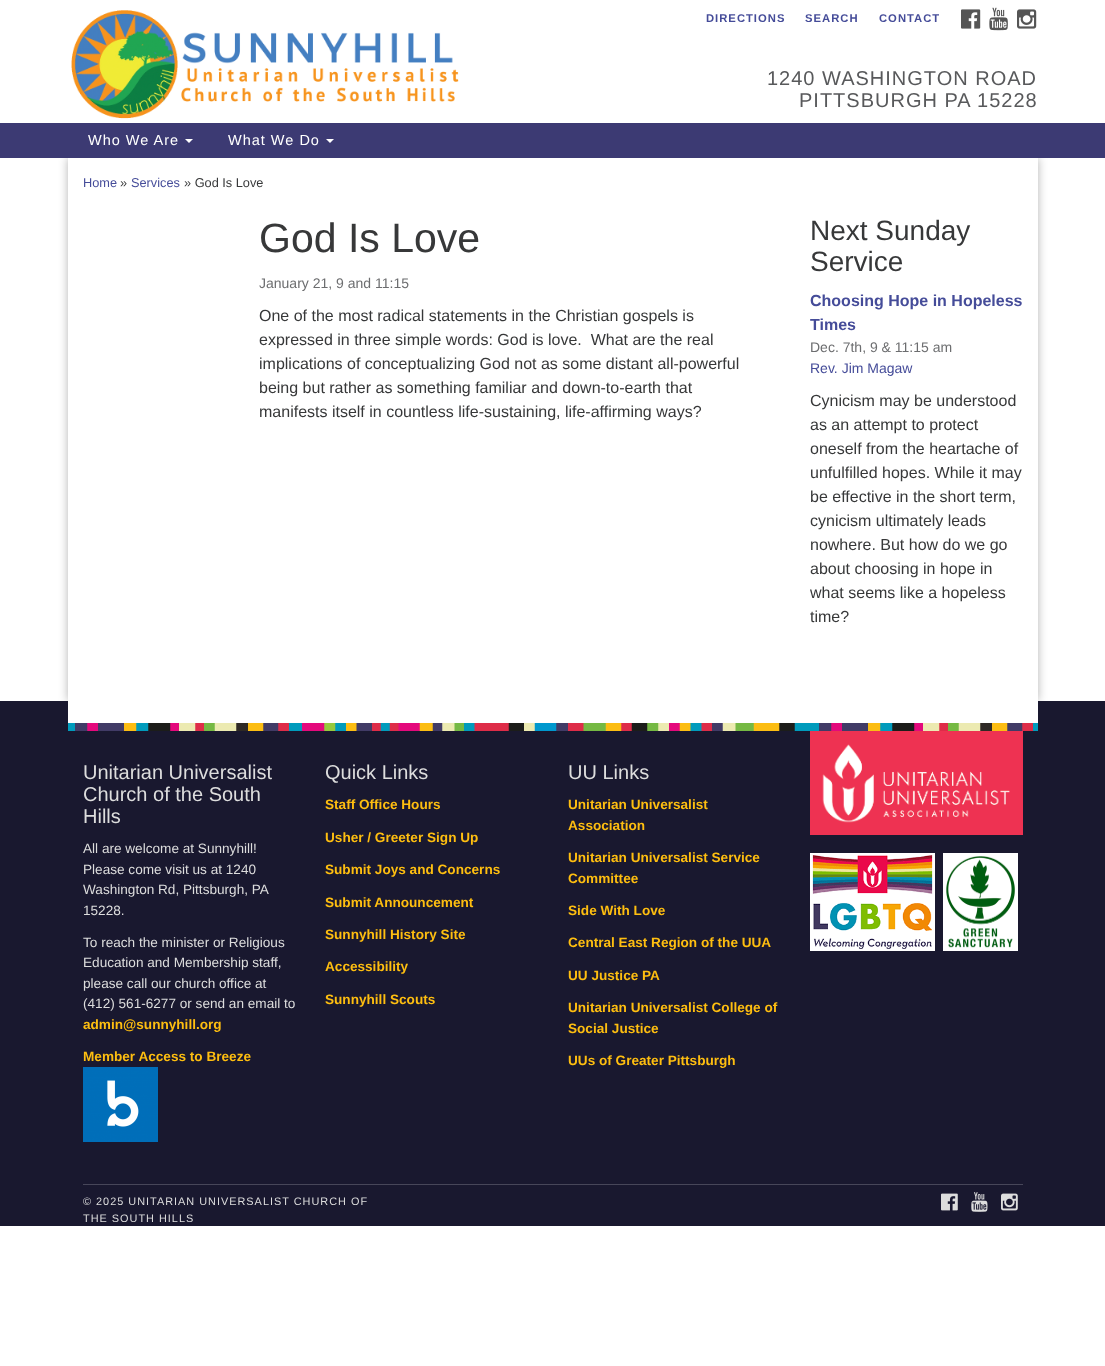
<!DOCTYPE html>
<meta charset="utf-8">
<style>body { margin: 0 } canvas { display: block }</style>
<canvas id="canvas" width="1105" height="1366"></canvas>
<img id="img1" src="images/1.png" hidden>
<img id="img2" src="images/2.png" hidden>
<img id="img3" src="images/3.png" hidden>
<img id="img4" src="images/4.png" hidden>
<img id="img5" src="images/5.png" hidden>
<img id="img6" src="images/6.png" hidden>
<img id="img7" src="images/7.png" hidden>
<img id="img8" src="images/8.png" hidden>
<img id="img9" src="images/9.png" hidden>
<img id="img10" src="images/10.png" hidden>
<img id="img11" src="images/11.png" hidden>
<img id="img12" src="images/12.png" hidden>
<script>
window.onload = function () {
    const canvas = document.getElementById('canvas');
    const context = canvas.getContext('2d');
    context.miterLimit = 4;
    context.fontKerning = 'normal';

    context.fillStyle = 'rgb(255, 255, 255)';
    context.fillRect(0, 0, 1105, 1366);
    context.drawImage(document.getElementById('img1'), 71, 10, 388, 109);
    context.drawImage(document.getElementById('img2'), 961, 9, 20, 20);
    context.drawImage(document.getElementById('img3'), 989, 7, 19, 24);
    context.drawImage(document.getElementById('img4'), 1017, 9, 20, 20);
    context.save();
    context.beginPath();
    context.moveTo(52, 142);
    context.lineTo(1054, 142);
    context.lineTo(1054, 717);
    context.lineTo(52, 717);
    context.closePath();
    context.moveTo(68, 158);
    context.lineTo(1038, 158);
    context.lineTo(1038, 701);
    context.lineTo(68, 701);
    context.closePath();
    context.clip('evenodd');
    context.fillStyle = 'rgba(0, 0, 0, 0.3)';
    context.filter = 'blur(5px)';
    context.beginPath();
    context.rect(68, 158, 970, 543);
    context.fill();
    context.filter = 'none';
    context.restore();
    context.fillStyle = 'rgb(60, 58, 115)';
    context.fillRect(0, 123, 1105, 35);
    context.fillStyle = 'rgb(255, 255, 255)';
    context.beginPath();
    context.moveTo(185, 139);
    context.lineTo(193, 139);
    context.lineTo(189, 143);
    context.closePath();
    context.fill();
    context.beginPath();
    context.moveTo(326, 139);
    context.lineTo(334, 139);
    context.lineTo(330, 143);
    context.closePath();
    context.fill();
    context.fillStyle = 'rgb(25, 24, 47)';
    context.fillRect(0, 701, 1105, 525);
    context.fillStyle = 'rgb(255, 255, 255)';
    context.fillRect(68, 701, 970, 22);
    context.drawImage(document.getElementById('img5'), 68, 723, 970, 8);
    context.drawImage(document.getElementById('img6'), 83, 1067, 75, 75);
    context.drawImage(document.getElementById('img7'), 810, 731, 213, 104);
    context.drawImage(document.getElementById('img8'), 810, 853, 125, 98);
    context.drawImage(document.getElementById('img9'), 943, 853, 75, 98);
    context.fillStyle = 'rgb(71, 70, 89)';
    context.fillRect(83, 1184, 940, 1);
    context.drawImage(document.getElementById('img10'), 941, 1193, 17, 18);
    context.drawImage(document.getElementById('img11'), 971, 1192, 17, 20);
    context.drawImage(document.getElementById('img12'), 1001, 1193, 17, 18);
    context.letterSpacing = '1px';
    context.font = 'bold 11.25px Liberation Sans';
    context.fillStyle = 'rgb(69, 76, 153)';
    context.fillText('DIRECTIONS', 706, 22);
    context.fillText('SEARCH', 805, 22);
    context.fillText('CONTACT', 879, 22);
    context.font = '20px Liberation Sans';
    context.fillStyle = 'rgb(88, 89, 91)';
    context.fillText('1240 WASHINGTON ROAD', 767, 85);
    context.fillText('PITTSBURGH PA 15228', 799, 107);
    context.font = '14.5px Liberation Sans';
    context.fillStyle = 'rgb(255, 255, 255)';
    context.fillText('Who We Are', 88, 145);
    context.fillText('What We Do', 228, 145);
    context.letterSpacing = '0px';
    context.font = '12.75px Liberation Sans';
    context.fillStyle = 'rgb(69, 76, 153)';
    context.fillText('Home', 83, 187);
    context.fillStyle = 'rgb(55, 56, 57)';
    context.fillText('»', 120, 187);
    context.fillStyle = 'rgb(69, 76, 153)';
    context.fillText('Services', 131, 187);
    context.fillStyle = 'rgb(55, 56, 57)';
    context.fillText('» God Is Love', 184, 187);
    context.font = '41px Liberation Sans';
    context.fillText('God Is Love', 259, 252);
    context.font = '14px Liberation Sans';
    context.fillStyle = 'rgb(108, 109, 111)';
    context.fillText('January 21, 9 and 11:15', 259, 288);
    context.font = '16px Liberation Sans';
    context.fillStyle = 'rgb(55, 56, 57)';
    context.fillText('One of the most radical statements in the Christian gospels is', 259, 321);
    context.fillText('expressed in three simple words: God is love.  What are the real', 259, 345);
    context.fillText('implications of conceptualizing God not as some distant all-powerful', 259, 369);
    context.fillText('being but rather as something familiar and down-to-earth that', 259, 393);
    context.fillText('manifests itself in countless life-sustaining, life-affirming ways?', 259, 417);
    context.font = '28px Liberation Sans';
    context.fillText('Next Sunday', 810, 240);
    context.fillText('Service', 810, 271);
    context.font = 'bold 16px Liberation Sans';
    context.fillStyle = 'rgb(69, 76, 153)';
    context.fillText('Choosing Hope in Hopeless', 810, 306);
    context.fillText('Times', 810, 330);
    context.font = '14px Liberation Sans';
    context.fillStyle = 'rgb(108, 109, 111)';
    context.fillText('Dec. 7th, 9 & 11:15 am', 810, 352);
    context.fillStyle = 'rgb(69, 76, 153)';
    context.fillText('Rev. Jim Magaw', 810, 373);
    context.font = '16px Liberation Sans';
    context.fillStyle = 'rgb(55, 56, 57)';
    context.fillText('Cynicism may be understood', 810, 406);
    context.fillText('as an attempt to protect', 810, 430);
    context.fillText('oneself from the heartache of', 810, 454);
    context.fillText('unfulfilled hopes. While it may', 810, 478);
    context.fillText('be effective in the short term,', 810, 502);
    context.fillText('cynicism ultimately leads', 810, 526);
    context.fillText('nowhere. But how do we go', 810, 550);
    context.fillText('about choosing in hope in', 810, 574);
    context.fillText('what seems like a hopeless', 810, 598);
    context.fillText('time?', 810, 622);
    context.font = '20px Liberation Sans';
    context.fillStyle = 'rgb(221, 221, 221)';
    context.fillText('Unitarian Universalist', 83, 779);
    context.fillText('Church of the South', 83, 801);
    context.fillText('Hills', 83, 823);
    context.font = '13.6px Liberation Sans';
    context.fillText('All are welcome at Sunnyhill!', 83, 853);
    context.fillText('Please come visit us at 1240', 83, 874);
    context.fillText('Washington Rd, Pittsburgh, PA', 83, 894);
    context.fillText('15228.', 83, 915);
    context.fillText('To reach the minister or Religious', 83, 947);
    context.fillText('Education and Membership staff,', 83, 967);
    context.fillText('please call our church office at', 83, 988);
    context.fillText('(412) 561-6277 or send an email to', 83, 1008);
    context.font = 'bold 13.6px Liberation Sans';
    context.fillStyle = 'rgb(254, 190, 16)';
    context.fillText('admin@sunnyhill.org', 83, 1029);
    context.fillText('Member Access to Breeze', 83, 1061);
    context.font = '20px Liberation Sans';
    context.fillStyle = 'rgb(221, 221, 221)';
    context.fillText('Quick Links', 325, 779);
    context.font = 'bold 13.6px Liberation Sans';
    context.fillStyle = 'rgb(254, 190, 16)';
    context.fillText('Staff Office Hours', 325, 809);
    context.fillText('Usher / Greeter Sign Up', 325, 842);
    context.fillText('Submit Joys and Concerns', 325, 874);
    context.fillText('Submit Announcement', 325, 907);
    context.fillText('Sunnyhill History Site', 325, 939);
    context.fillText('Accessibility', 325, 971);
    context.fillText('Sunnyhill Scouts', 325, 1004);
    context.font = '20px Liberation Sans';
    context.fillStyle = 'rgb(221, 221, 221)';
    context.fillText('UU Links', 568, 779);
    context.font = 'bold 13.6px Liberation Sans';
    context.fillStyle = 'rgb(254, 190, 16)';
    context.fillText('Unitarian Universalist', 568, 809);
    context.fillText('Association', 568, 830);
    context.fillText('Unitarian Universalist Service', 568, 862);
    context.fillText('Committee', 568, 883);
    context.fillText('Side With Love', 568, 915);
    context.fillText('Central East Region of the UUA', 568, 947);
    context.fillText('UU Justice PA', 568, 980);
    context.fillText('Unitarian Universalist College of', 568, 1012);
    context.fillText('Social Justice', 568, 1033);
    context.fillText('UUs of Greater Pittsburgh', 568, 1065);
    context.letterSpacing = '1px';
    context.font = '10.9px Liberation Sans';
    context.fillStyle = 'rgb(221, 221, 221)';
    context.fillText('© 2025 UNITARIAN UNIVERSALIST CHURCH OF', 83, 1205);
    context.fillText('THE SOUTH HILLS', 83, 1222);
};
</script>
